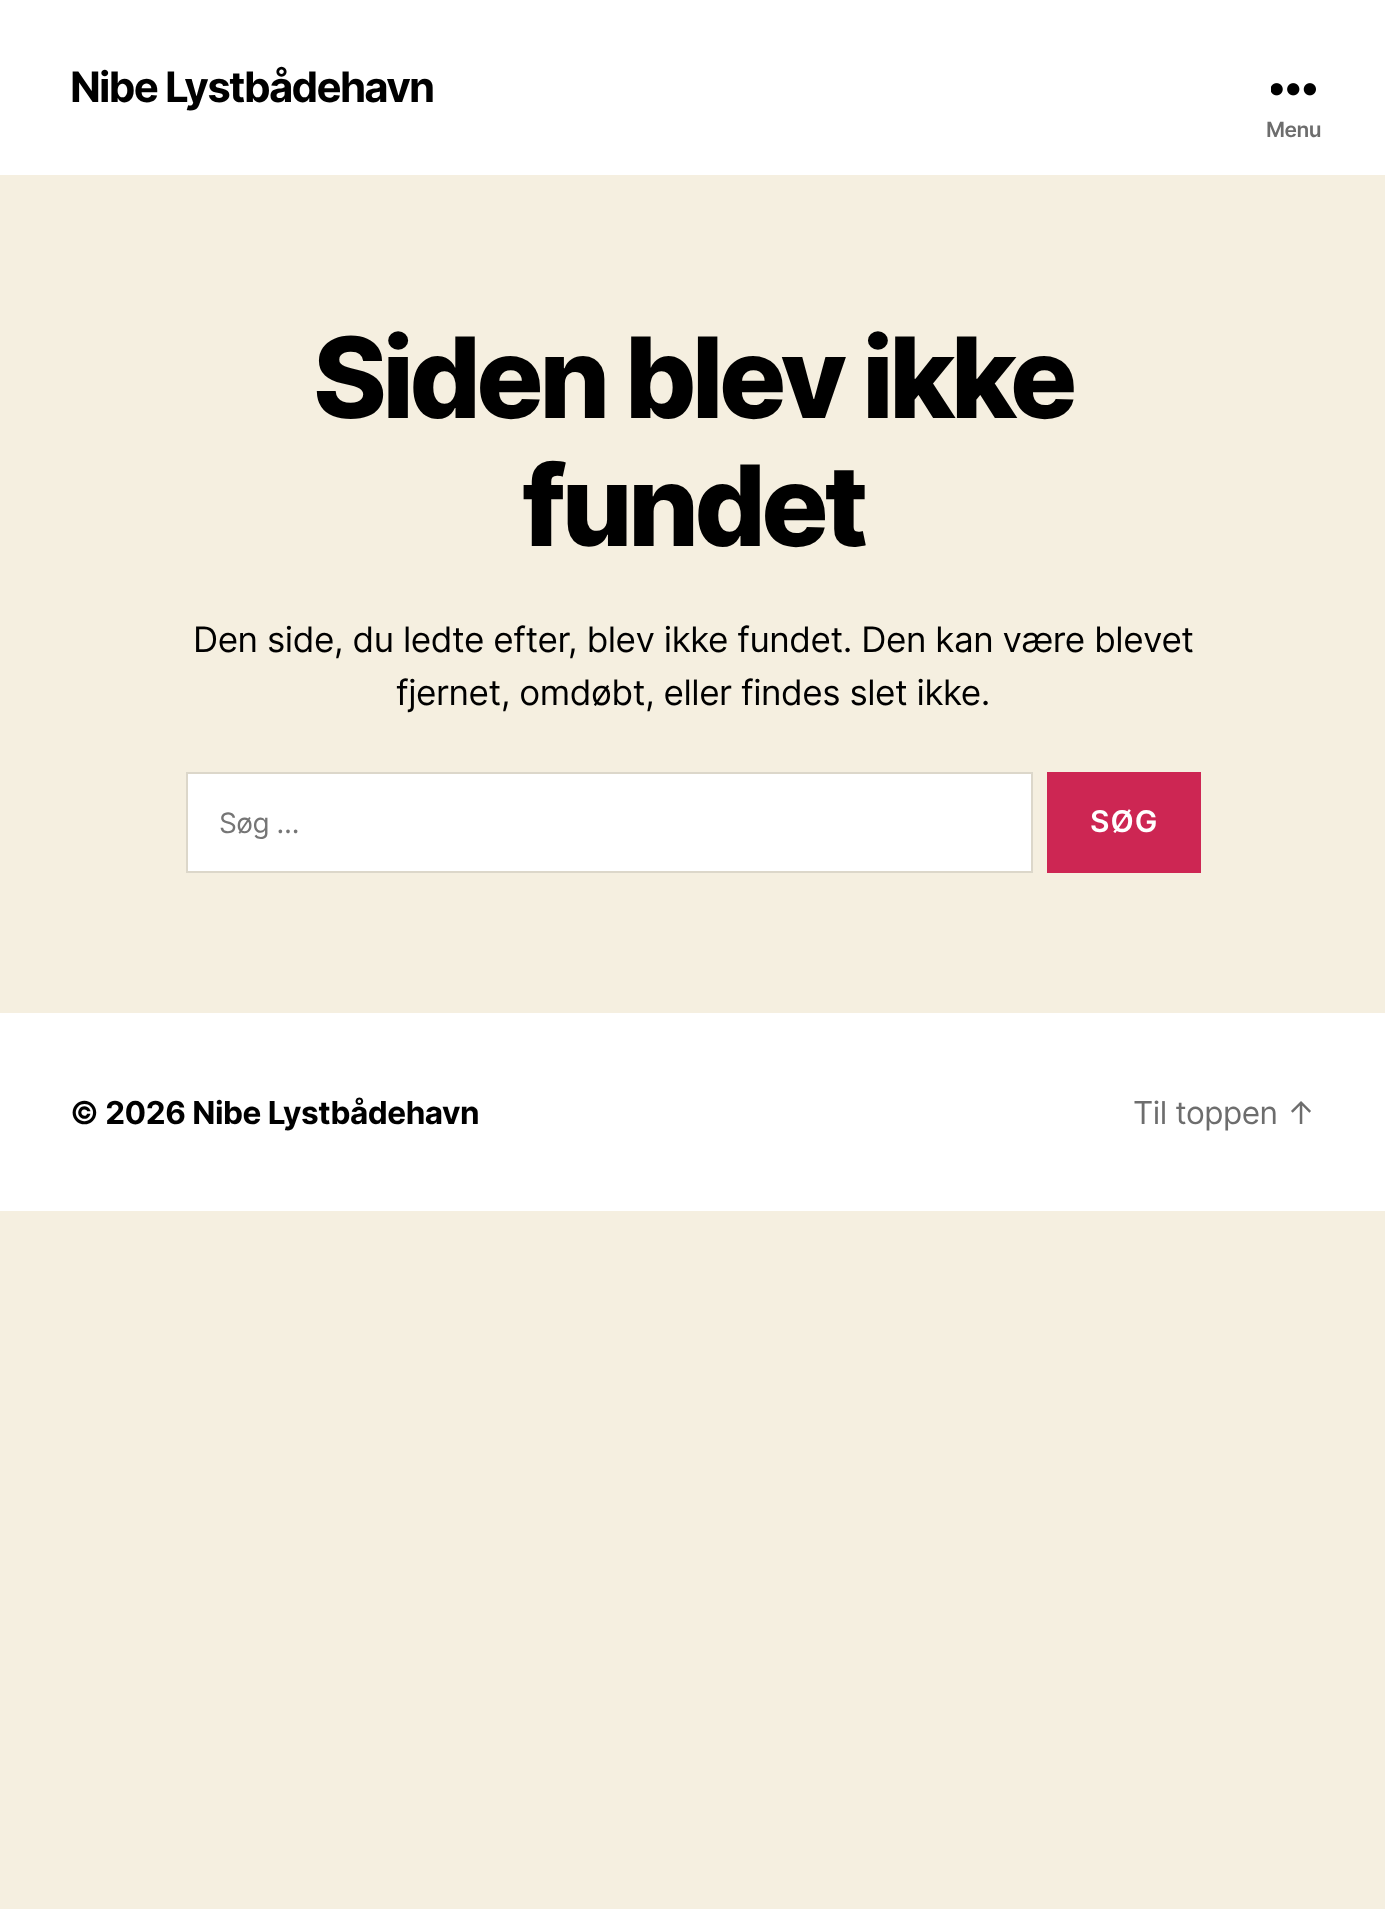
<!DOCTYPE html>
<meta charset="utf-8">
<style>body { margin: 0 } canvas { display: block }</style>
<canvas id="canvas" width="1385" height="1909"></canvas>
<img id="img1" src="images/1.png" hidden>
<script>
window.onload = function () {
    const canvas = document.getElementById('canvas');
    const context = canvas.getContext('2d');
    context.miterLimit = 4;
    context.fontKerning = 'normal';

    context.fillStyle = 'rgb(245, 239, 224)';
    context.fillRect(0, 0, 1385, 1909);
    context.fillStyle = 'rgb(255, 255, 255)';
    context.fillRect(0, 0, 1385, 175);
    context.drawImage(document.getElementById('img1'), 1271, 83, 45, 13);
    context.beginPath();
    context.rect(187, 773, 845, 99);
    context.fill();
    context.strokeStyle = 'rgb(220, 215, 202)';
    context.lineWidth = 2;
    context.stroke();
    context.fillStyle = 'rgb(205, 38, 83)';
    context.fillRect(1047, 772, 154, 101);
    context.fillStyle = 'rgb(255, 255, 255)';
    context.fillRect(0, 1013, 1385, 198);
    context.letterSpacing = '-1.75px';
    context.font = 'bold 42px Inter';
    context.fillStyle = 'rgb(0, 0, 0)';
    context.fillText('Nibe Lystbådehavn', 70, 102);
    context.letterSpacing = '-0.47px';
    context.font = '600 21px Inter';
    context.fillStyle = 'rgb(109, 109, 109)';
    context.fillText('Menu', 1266, 137);
    context.letterSpacing = '-4.7px';
    context.font = '800 112px Inter';
    context.fillStyle = 'rgb(0, 0, 0)';
    context.fillText('Siden blev ikke', 313, 418);
    context.fillText('fundet', 522, 546);
    context.letterSpacing = '-0.47px';
    context.font = '35px Inter';
    context.fillText('Den side, du ledte efter, blev ikke fundet. Den kan være blevet', 193, 652);
    context.fillText('fjernet, omdøbt, eller findes slet ikke.', 396, 705);
    context.letterSpacing = '-0.5px';
    context.font = '28px Inter';
    context.fillStyle = 'rgb(117, 117, 117)';
    context.fillText('Søg …', 219, 833);
    context.letterSpacing = '1px';
    context.font = '600 30px Inter';
    context.fillStyle = 'rgb(255, 255, 255)';
    context.fillText('SØG', 1090, 832);
    context.letterSpacing = '-0.47px';
    context.font = 'bold 31.5px Inter';
    context.fillStyle = 'rgb(0, 0, 0)';
    context.fillText('© 2026 Nibe Lystbådehavn', 70, 1124);
    context.font = '31.5px Inter';
    context.fillStyle = 'rgb(109, 109, 109)';
    context.fillText('Til toppen ↑', 1133, 1124);
};
</script>
